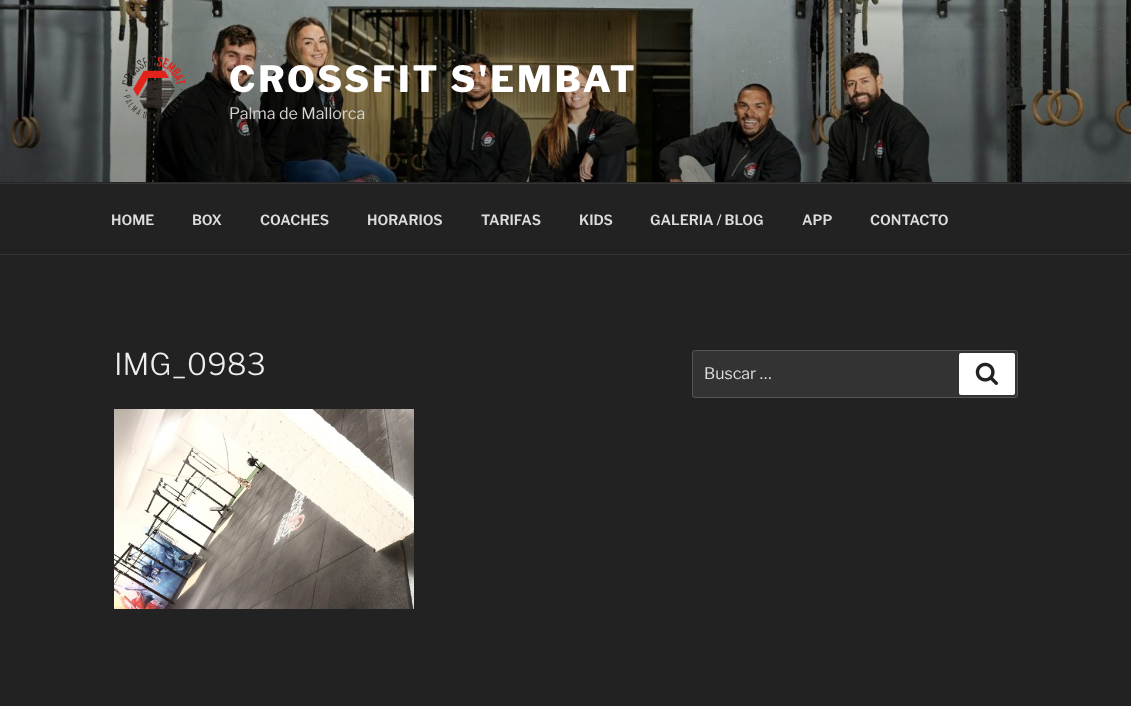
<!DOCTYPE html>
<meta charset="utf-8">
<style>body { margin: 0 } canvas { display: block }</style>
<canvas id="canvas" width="1131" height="706"></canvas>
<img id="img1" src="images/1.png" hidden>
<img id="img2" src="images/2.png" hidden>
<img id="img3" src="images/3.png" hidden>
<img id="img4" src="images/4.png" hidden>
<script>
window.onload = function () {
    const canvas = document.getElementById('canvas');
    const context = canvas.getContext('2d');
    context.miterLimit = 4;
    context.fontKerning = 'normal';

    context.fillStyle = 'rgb(34, 34, 34)';
    context.fillRect(0, 0, 1131, 706);
    context.fillStyle = 'rgb(38, 38, 38)';
    context.fillRect(0, 182, 1131, 1);
    context.drawImage(document.getElementById('img1'), 0, 0, 1131, 182);
    context.drawImage(document.getElementById('img2'), 122, 56, 64, 64);
    context.fillStyle = 'rgb(51, 51, 51)';
    context.fillRect(0, 183, 1131, 1);
    context.fillRect(0, 254, 1131, 1);
    context.drawImage(document.getElementById('img3'), 114, 409, 300, 200);
    context.beginPath();
    context.roundRect(692.5, 350.5, 325, 47, 2.5);
    context.fill();
    context.strokeStyle = 'rgb(85, 85, 85)';
    context.stroke();
    context.fillStyle = 'rgb(255, 255, 255)';
    context.beginPath();
    context.roundRect(959, 353, 56, 42, 2);
    context.fill();
    context.drawImage(document.getElementById('img4'), 975, 362, 23, 23);
    context.letterSpacing = '2.9px';
    context.font = '100 36px "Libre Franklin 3"';
    context.fillText('CROSSFIT S\'EMBAT', 229, 92);
    context.letterSpacing = '0px';
    context.font = '100 16px "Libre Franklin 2"';
    context.fillStyle = 'rgb(211, 210, 209)';
    context.fillText('Palma de Mallorca', 229, 119);
    context.font = '100 14px "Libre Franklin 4"';
    context.fillStyle = 'rgb(221, 221, 221)';
    context.fillText('HOME', 111, 225);
    context.fillText('BOX', 192, 225);
    context.fillText('COACHES', 260, 225);
    context.fillText('HORARIOS', 367, 225);
    context.fillText('TARIFAS', 481, 225);
    context.fillText('KIDS', 579, 225);
    context.fillText('GALERIA / BLOG', 650, 225);
    context.fillText('APP', 802, 225);
    context.fillText('CONTACTO', 870, 225);
    context.font = '100 30px Libre Franklin';
    context.fillStyle = 'rgb(238, 238, 238)';
    context.fillText('IMG_0983', 114, 375);
    context.font = '100 16px "Libre Franklin 2"';
    context.fillStyle = 'rgb(221, 221, 221)';
    context.fillText('Buscar …', 704, 379);
};
</script>
